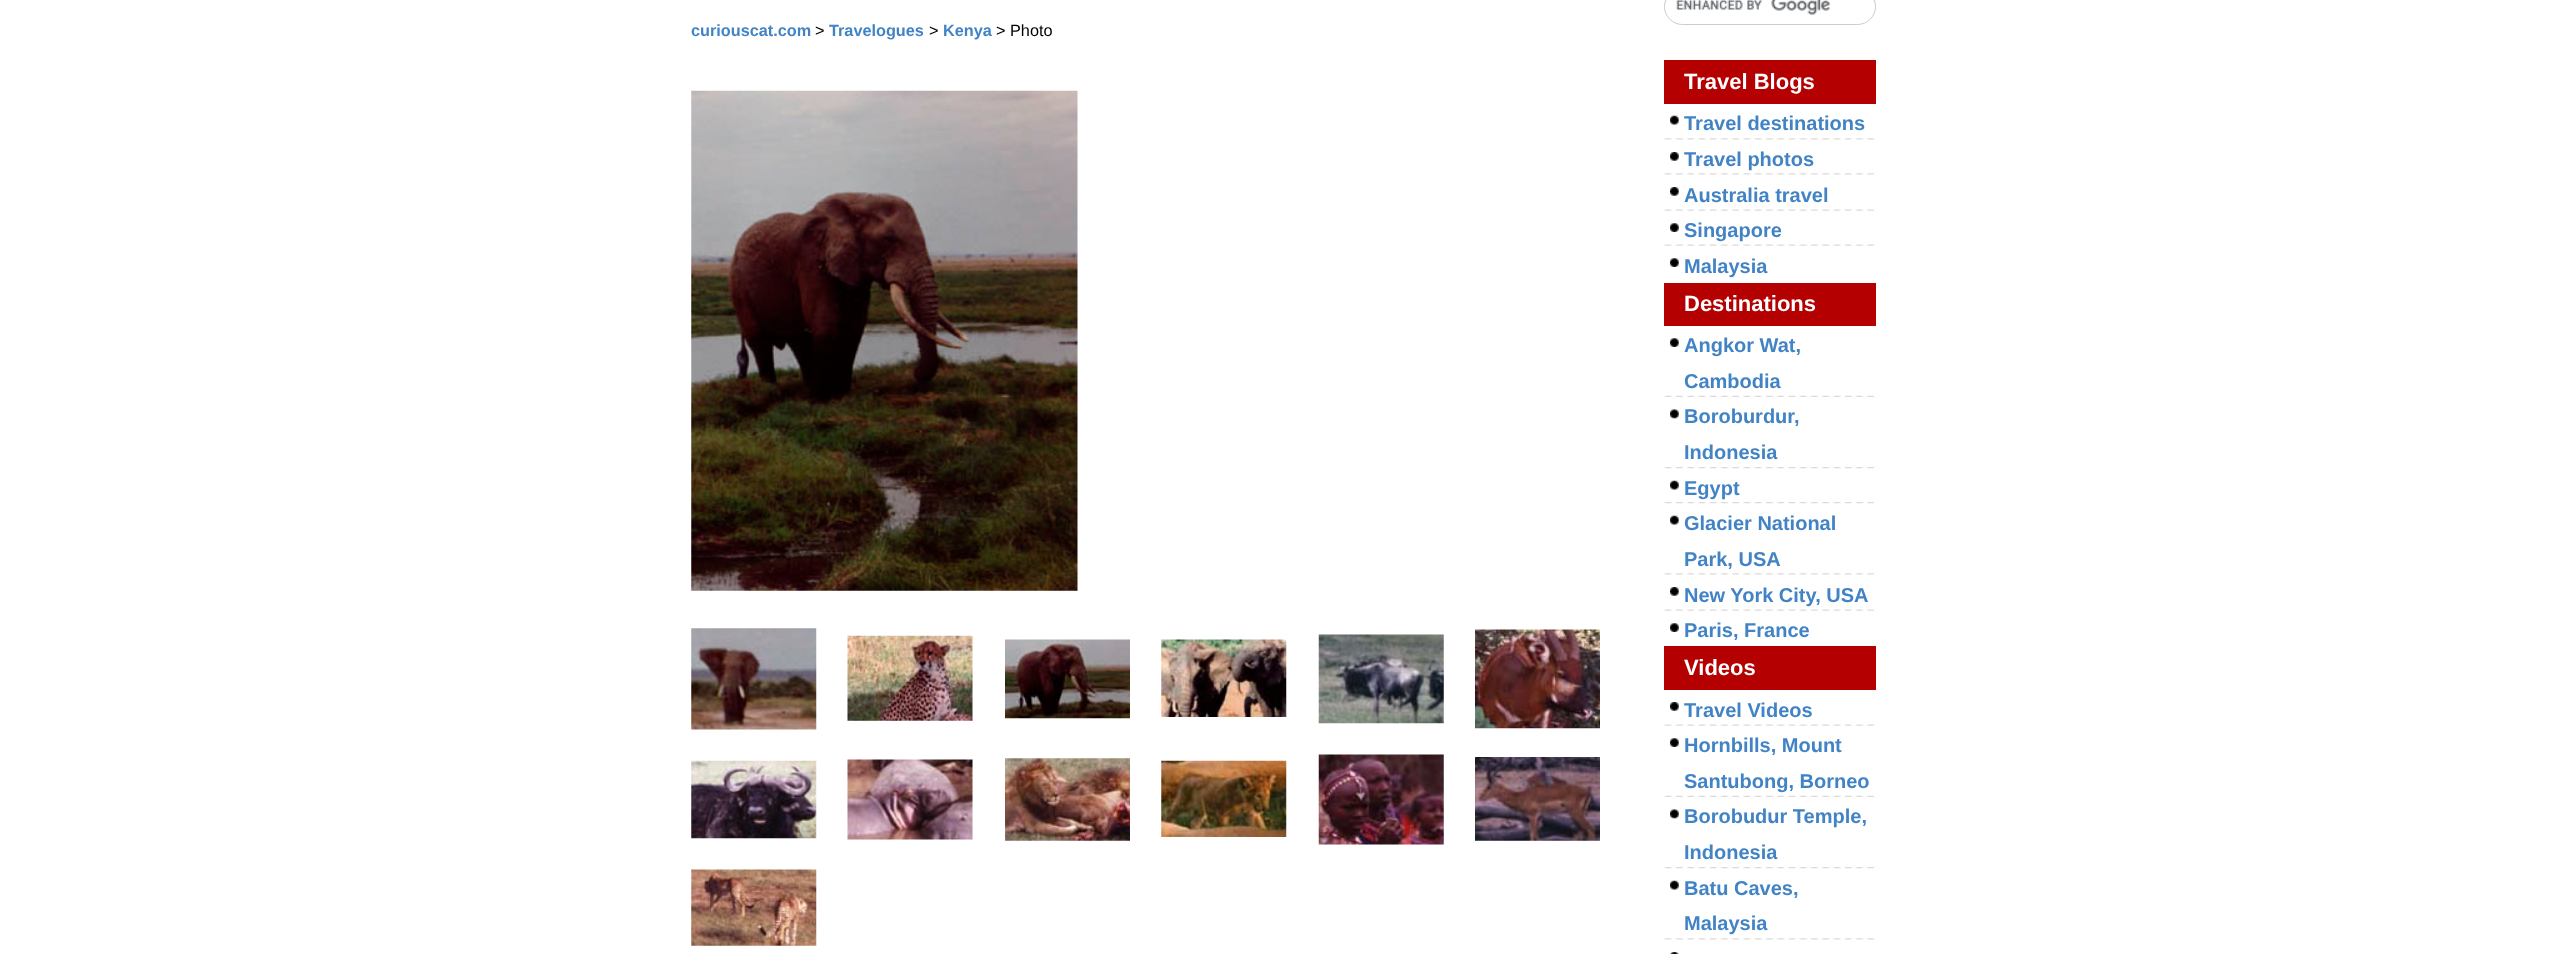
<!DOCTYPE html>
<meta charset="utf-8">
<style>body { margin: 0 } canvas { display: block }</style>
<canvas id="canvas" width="2551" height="954"></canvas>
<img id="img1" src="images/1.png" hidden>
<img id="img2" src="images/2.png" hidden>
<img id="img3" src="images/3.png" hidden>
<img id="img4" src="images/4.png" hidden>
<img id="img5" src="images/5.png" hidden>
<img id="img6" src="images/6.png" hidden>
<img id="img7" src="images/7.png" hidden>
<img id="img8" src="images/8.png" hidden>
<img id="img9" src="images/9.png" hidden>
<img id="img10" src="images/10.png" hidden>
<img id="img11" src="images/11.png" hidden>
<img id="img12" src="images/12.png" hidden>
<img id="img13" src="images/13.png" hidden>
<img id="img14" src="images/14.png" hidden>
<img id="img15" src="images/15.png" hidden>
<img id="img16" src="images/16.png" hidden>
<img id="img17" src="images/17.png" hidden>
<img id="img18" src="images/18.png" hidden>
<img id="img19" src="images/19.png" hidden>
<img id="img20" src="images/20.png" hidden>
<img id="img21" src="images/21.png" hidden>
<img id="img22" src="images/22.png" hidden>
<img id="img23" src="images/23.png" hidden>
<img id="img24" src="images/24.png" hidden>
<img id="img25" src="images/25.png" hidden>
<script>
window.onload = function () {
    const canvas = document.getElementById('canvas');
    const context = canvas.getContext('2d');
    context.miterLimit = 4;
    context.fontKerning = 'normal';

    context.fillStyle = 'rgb(255, 255, 255)';
    context.fillRect(0, 0, 2551, 954);
    context.drawImage(document.getElementById('img1'), 691, 90, 387, 501);
    context.drawImage(document.getElementById('img2'), 691, 628, 126, 102);
    context.drawImage(document.getElementById('img3'), 847, 635, 126, 86);
    context.drawImage(document.getElementById('img4'), 1005, 639, 125, 80);
    context.drawImage(document.getElementById('img5'), 1161, 639, 126, 78);
    context.drawImage(document.getElementById('img6'), 1318, 634, 126, 90);
    context.drawImage(document.getElementById('img7'), 1475, 629, 125, 100);
    context.drawImage(document.getElementById('img8'), 691, 760, 126, 79);
    context.drawImage(document.getElementById('img9'), 847, 759, 126, 81);
    context.drawImage(document.getElementById('img10'), 1005, 758, 125, 83);
    context.drawImage(document.getElementById('img11'), 1161, 760, 126, 77);
    context.drawImage(document.getElementById('img12'), 1318, 754, 126, 91);
    context.drawImage(document.getElementById('img13'), 1475, 757, 125, 84);
    context.drawImage(document.getElementById('img14'), 691, 869, 126, 77);
    context.drawImage(document.getElementById('img15'), 1676, 0, 154, 15);
    context.fillStyle = 'rgb(236, 236, 236)';
    context.beginPath();
    context.moveTo(1682, -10);
    context.lineTo(1858, -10);
    context.bezierCurveTo(1867, -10, 1875, -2, 1875, 7);
    context.bezierCurveTo(1876, -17, 1841, -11, 1828, -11);
    context.lineTo(1712, -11);
    context.bezierCurveTo(1699, -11, 1664, -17, 1665, 7);
    context.bezierCurveTo(1665, -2, 1673, -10, 1682, -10);
    context.closePath();
    context.fill();
    context.beginPath();
    context.roundRect(1664.5, -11.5, 211, 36, 18);
    context.strokeStyle = 'rgb(204, 204, 204)';
    context.stroke();
    context.fillStyle = 'rgb(180, 0, 0)';
    context.fillRect(1664, 60, 212, 44);
    context.drawImage(document.getElementById('img16'), 1670, 115, 9, 10);
    context.drawImage(document.getElementById('img17'), 1664, 138, 211, 2);
    context.drawImage(document.getElementById('img18'), 1670, 152, 9, 9);
    context.drawImage(document.getElementById('img17'), 1664, 173, 211, 2);
    context.drawImage(document.getElementById('img18'), 1670, 187, 9, 9);
    context.drawImage(document.getElementById('img19'), 1664, 209, 211, 2);
    context.drawImage(document.getElementById('img20'), 1670, 223, 9, 9);
    context.drawImage(document.getElementById('img19'), 1664, 244, 211, 2);
    context.drawImage(document.getElementById('img20'), 1670, 258, 9, 9);
    context.fillRect(1664, 283, 212, 43);
    context.drawImage(document.getElementById('img20'), 1670, 338, 9, 9);
    context.drawImage(document.getElementById('img21'), 1664, 395, 211, 2);
    context.drawImage(document.getElementById('img22'), 1670, 409, 9, 10);
    context.drawImage(document.getElementById('img23'), 1664, 467, 211, 2);
    context.drawImage(document.getElementById('img16'), 1670, 480, 9, 10);
    context.drawImage(document.getElementById('img23'), 1664, 502, 211, 2);
    context.drawImage(document.getElementById('img16'), 1670, 515, 9, 10);
    context.drawImage(document.getElementById('img17'), 1664, 573, 211, 2);
    context.drawImage(document.getElementById('img18'), 1670, 587, 9, 9);
    context.drawImage(document.getElementById('img19'), 1664, 609, 211, 2);
    context.drawImage(document.getElementById('img20'), 1670, 623, 9, 9);
    context.fillRect(1664, 646, 212, 44);
    context.drawImage(document.getElementById('img18'), 1670, 702, 9, 9);
    context.drawImage(document.getElementById('img19'), 1664, 724, 211, 2);
    context.drawImage(document.getElementById('img24'), 1670, 738, 9, 9);
    context.drawImage(document.getElementById('img21'), 1664, 795, 211, 2);
    context.drawImage(document.getElementById('img22'), 1670, 809, 9, 10);
    context.drawImage(document.getElementById('img23'), 1664, 867, 211, 2);
    context.drawImage(document.getElementById('img16'), 1670, 880, 9, 10);
    context.drawImage(document.getElementById('img17'), 1664, 938, 211, 2);
    context.drawImage(document.getElementById('img25'), 1670, 952, 9, 2);
    context.font = 'bold 16.25px Liberation Sans';
    context.fillStyle = 'rgb(65, 131, 196)';
    context.fillText('curiouscat.com', 691, 36);
    context.font = '16.25px Liberation Sans';
    context.fillStyle = 'rgb(0, 0, 0)';
    context.fillText('>', 815, 36);
    context.font = 'bold 16.25px Liberation Sans';
    context.fillStyle = 'rgb(65, 131, 196)';
    context.fillText('Travelogues', 829, 36);
    context.font = '16.25px Liberation Sans';
    context.fillStyle = 'rgb(0, 0, 0)';
    context.fillText('>', 929, 36);
    context.font = 'bold 16.25px Liberation Sans';
    context.fillStyle = 'rgb(65, 131, 196)';
    context.fillText('Kenya', 943, 36);
    context.font = '16.25px Liberation Sans';
    context.fillStyle = 'rgb(0, 0, 0)';
    context.fillText('> Photo', 996, 36);
    context.font = 'bold 22px Liberation Sans';
    context.fillStyle = 'rgb(255, 255, 255)';
    context.fillText('Travel Blogs', 1684, 89);
    context.font = 'bold 20px Liberation Sans';
    context.fillStyle = 'rgb(65, 131, 196)';
    context.fillText('Travel destinations', 1684, 130);
    context.fillText('Travel photos', 1684, 166);
    context.fillText('Australia travel', 1684, 202);
    context.fillText('Singapore', 1684, 237);
    context.fillText('Malaysia', 1684, 273);
    context.font = 'bold 22px Liberation Sans';
    context.fillStyle = 'rgb(255, 255, 255)';
    context.fillText('Destinations', 1684, 311);
    context.font = 'bold 20px Liberation Sans';
    context.fillStyle = 'rgb(65, 131, 196)';
    context.fillText('Angkor Wat,', 1684, 352);
    context.fillText('Cambodia', 1684, 388);
    context.fillText('Boroburdur,', 1684, 423);
    context.fillText('Indonesia', 1684, 459);
    context.fillText('Egypt', 1684, 495);
    context.fillText('Glacier National', 1684, 530);
    context.fillText('Park, USA', 1684, 566);
    context.fillText('New York City, USA', 1684, 602);
    context.fillText('Paris, France', 1684, 637);
    context.font = 'bold 22px Liberation Sans';
    context.fillStyle = 'rgb(255, 255, 255)';
    context.fillText('Videos', 1684, 675);
    context.font = 'bold 20px Liberation Sans';
    context.fillStyle = 'rgb(65, 131, 196)';
    context.fillText('Travel Videos', 1684, 717);
    context.fillText('Hornbills, Mount', 1684, 752);
    context.fillText('Santubong, Borneo', 1684, 788);
    context.fillText('Borobudur Temple,', 1684, 823);
    context.fillText('Indonesia', 1684, 859);
    context.fillText('Batu Caves,', 1684, 895);
    context.fillText('Malaysia', 1684, 930);
};
</script>
